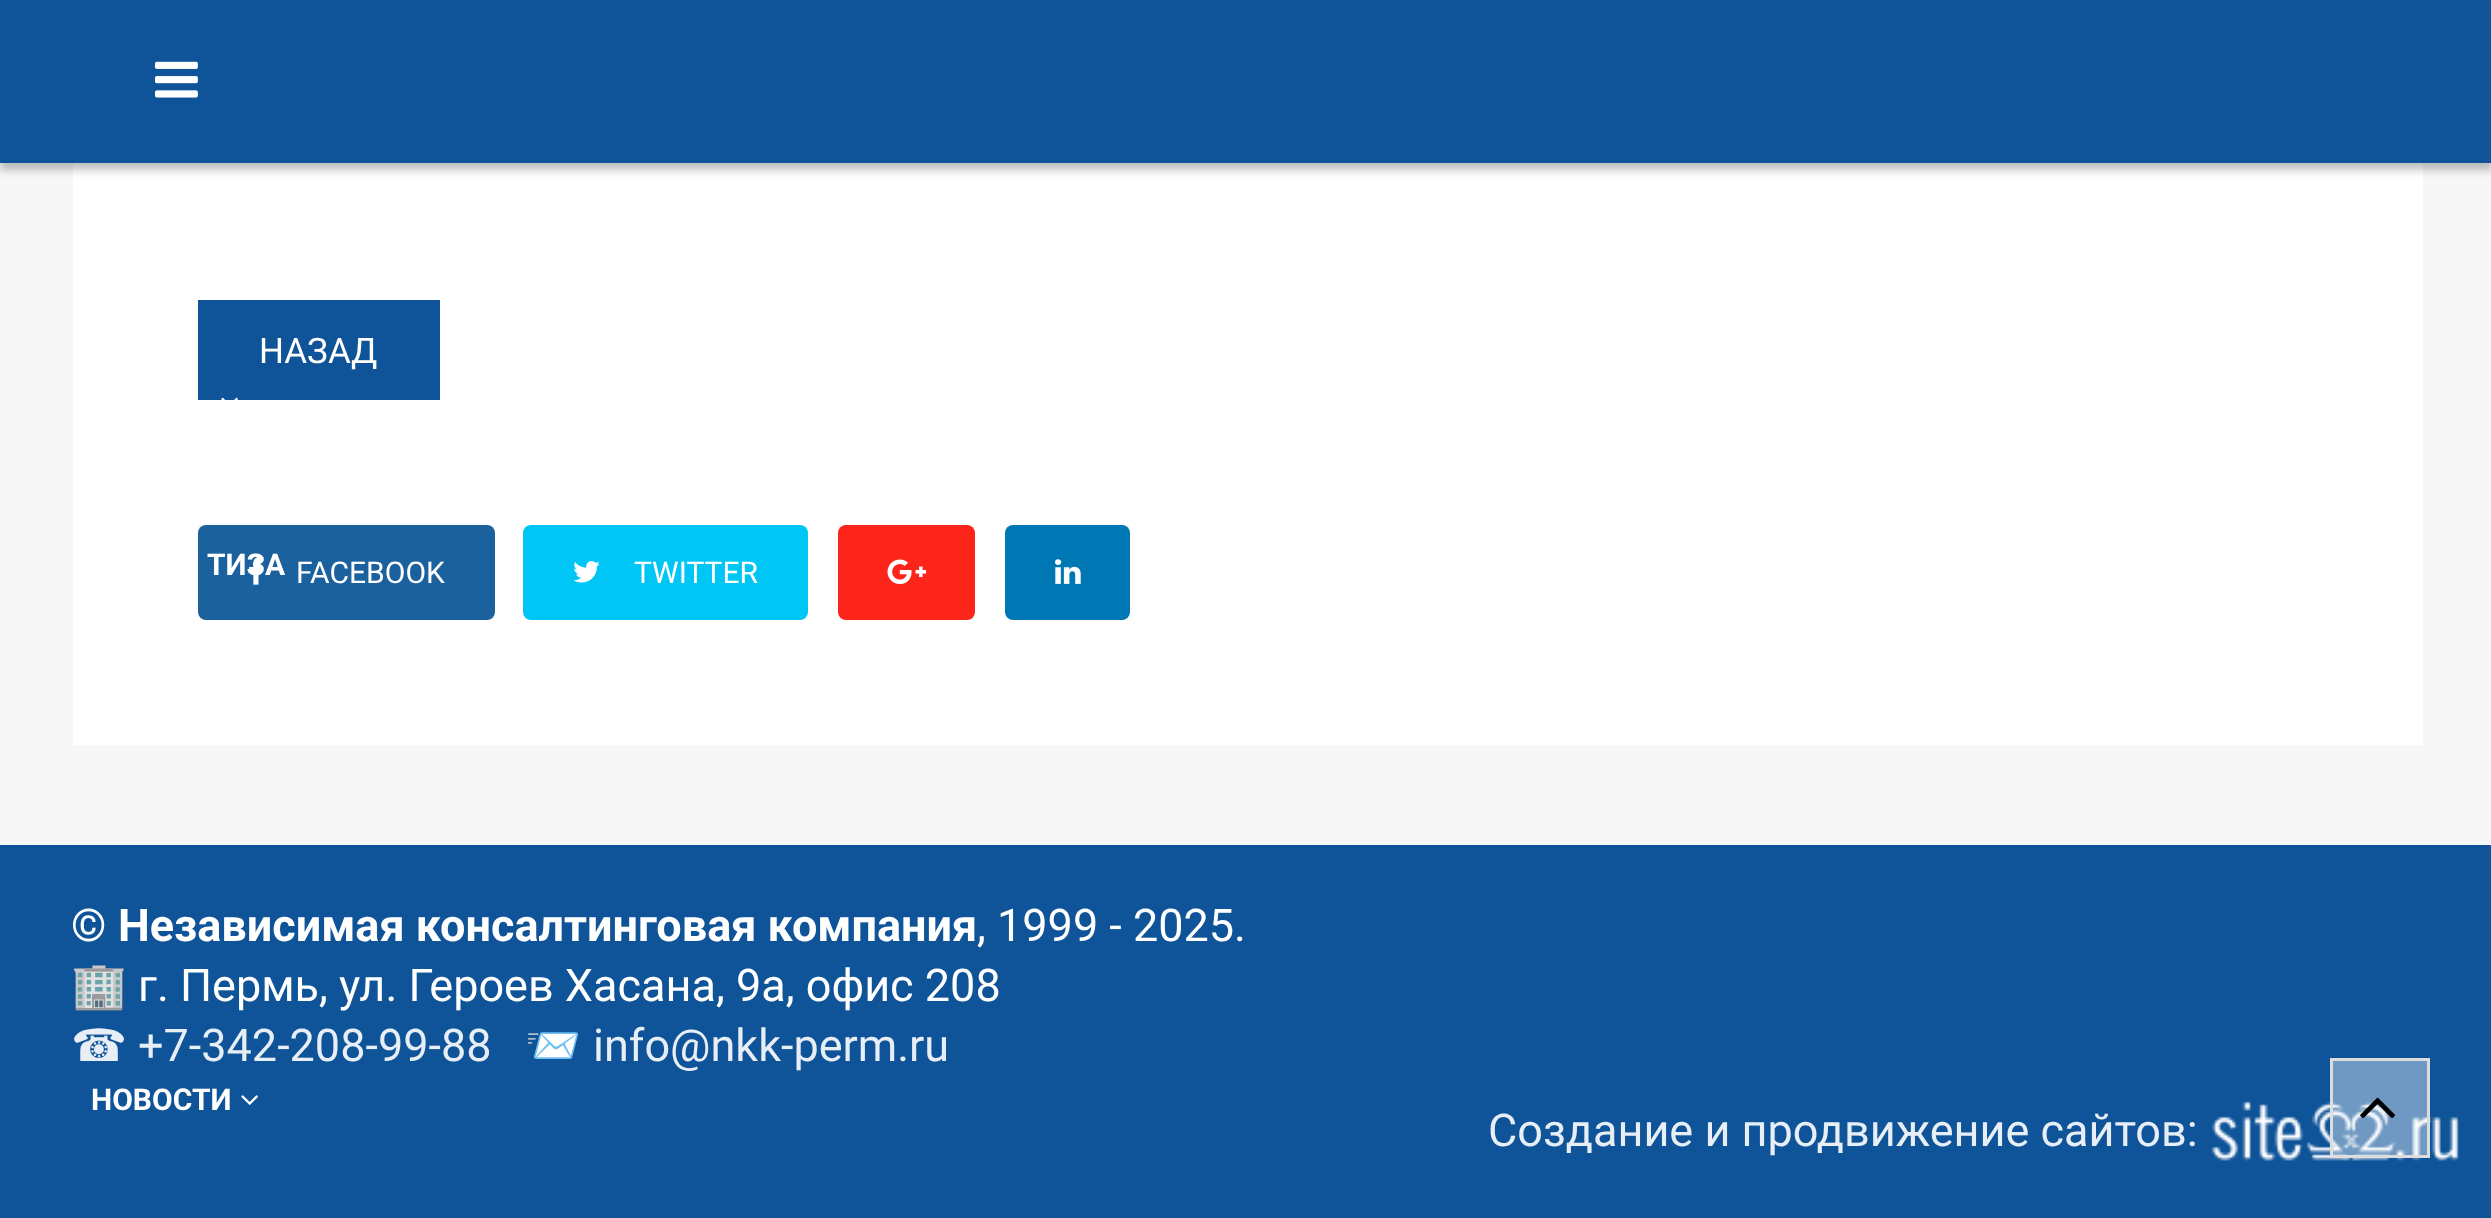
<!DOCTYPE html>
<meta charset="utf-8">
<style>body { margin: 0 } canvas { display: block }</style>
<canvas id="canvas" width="2491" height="1218"></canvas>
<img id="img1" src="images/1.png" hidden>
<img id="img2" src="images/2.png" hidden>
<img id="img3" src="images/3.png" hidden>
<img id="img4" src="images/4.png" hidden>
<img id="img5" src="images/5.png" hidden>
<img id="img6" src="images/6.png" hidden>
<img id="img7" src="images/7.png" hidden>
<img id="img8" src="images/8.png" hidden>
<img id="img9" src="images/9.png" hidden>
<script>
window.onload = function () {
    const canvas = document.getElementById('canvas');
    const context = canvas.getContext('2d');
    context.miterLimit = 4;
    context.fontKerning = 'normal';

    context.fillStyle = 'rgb(247, 247, 247)';
    context.fillRect(0, 0, 2491, 1218);
    context.fillStyle = 'rgb(255, 255, 255)';
    context.fillRect(73, 163, 2350, 582);
    context.fillStyle = 'rgb(15, 84, 153)';
    context.fillRect(198, 300, 242, 100);
    context.fillStyle = 'rgb(27, 97, 157)';
    context.beginPath();
    context.roundRect(198, 525, 297, 95, 8);
    context.fill();
    context.drawImage(document.getElementById('img1'), 249, 556, 15, 29);
    context.fillStyle = 'rgb(0, 198, 246)';
    context.beginPath();
    context.roundRect(523, 525, 285, 95, 8);
    context.fill();
    context.drawImage(document.getElementById('img2'), 573, 561, 27, 22);
    context.fillStyle = 'rgb(253, 37, 25)';
    context.beginPath();
    context.roundRect(838, 525, 137, 95, 8);
    context.fill();
    context.drawImage(document.getElementById('img3'), 887, 559, 40, 26);
    context.fillStyle = 'rgb(0, 119, 181)';
    context.beginPath();
    context.roundRect(1005, 525, 125, 95, 8);
    context.fill();
    context.drawImage(document.getElementById('img4'), 1055, 559, 26, 25);
    context.fillStyle = 'rgba(0, 0, 0, 0.25)';
    context.filter = 'blur(4px)';
    context.beginPath();
    context.rect(0, 8, 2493, 162);
    context.fill();
    context.filter = 'none';
    context.fillStyle = 'rgb(15, 84, 153)';
    context.fillRect(0, 0, 2491, 163);
    context.drawImage(document.getElementById('img5'), 155, 61, 43, 37);
    context.drawImage(document.getElementById('img6'), 221, 397, 17, 3);
    context.fillRect(0, 845, 2491, 373);
    context.drawImage(document.getElementById('img7'), 241, 1095, 17, 10);
    context.drawImage(document.getElementById('img8'), 2211, 1101, 248, 60);
    context.fillStyle = 'rgba(255, 255, 255, 0.4)';
    context.beginPath();
    context.rect(2331.5, 1059.5, 97, 97);
    context.fill();
    context.strokeStyle = 'rgb(221, 221, 221)';
    context.lineWidth = 3;
    context.stroke();
    context.drawImage(document.getElementById('img9'), 2360, 1097, 35, 22);
    context.font = '35px Roboto';
    context.fillStyle = 'rgb(255, 255, 255)';
    context.fillText('НАЗАД', 259, 363);
    context.font = '30px Roboto';
    context.fillText('FACEBOOK', 296, 583);
    context.fillText('TWITTER', 634, 583);
    context.font = 'bold 30px Roboto';
    context.fillText('ТИЗА', 207, 575);
    context.fillText('НОВОСТИ', 91, 1110);
    context.font = '45px Roboto';
    context.fillText('©', 71, 941);
    context.font = 'bold 45px Roboto';
    context.fillText('Независимая консалтинговая компания', 118, 941);
    context.font = '45px Roboto';
    context.fillText(', 1999 - 2025.', 977, 941);
    context.font = '45px Noto Color Emoji';
    context.fillText('🏢', 71, 1001);
    context.font = '45px Roboto';
    context.fillText('г. Пермь, ул. Героев Хасана, 9а, офис 208', 138, 1001);
    context.font = '45px DejaVu Sans';
    context.fillStyle = 'rgb(231, 238, 245)';
    context.fillText('☎', 71, 1061);
    context.font = '45px Roboto';
    context.fillText('+7-342-208-99-88', 138, 1061);
    context.font = '45px Noto Color Emoji';
    context.fillText('📨', 525, 1061);
    context.font = '45px Roboto';
    context.fillText('info@nkk-perm.ru', 593, 1061);
    context.fillText('Создание и продвижение сайтов:', 1488, 1146);
};
</script>
